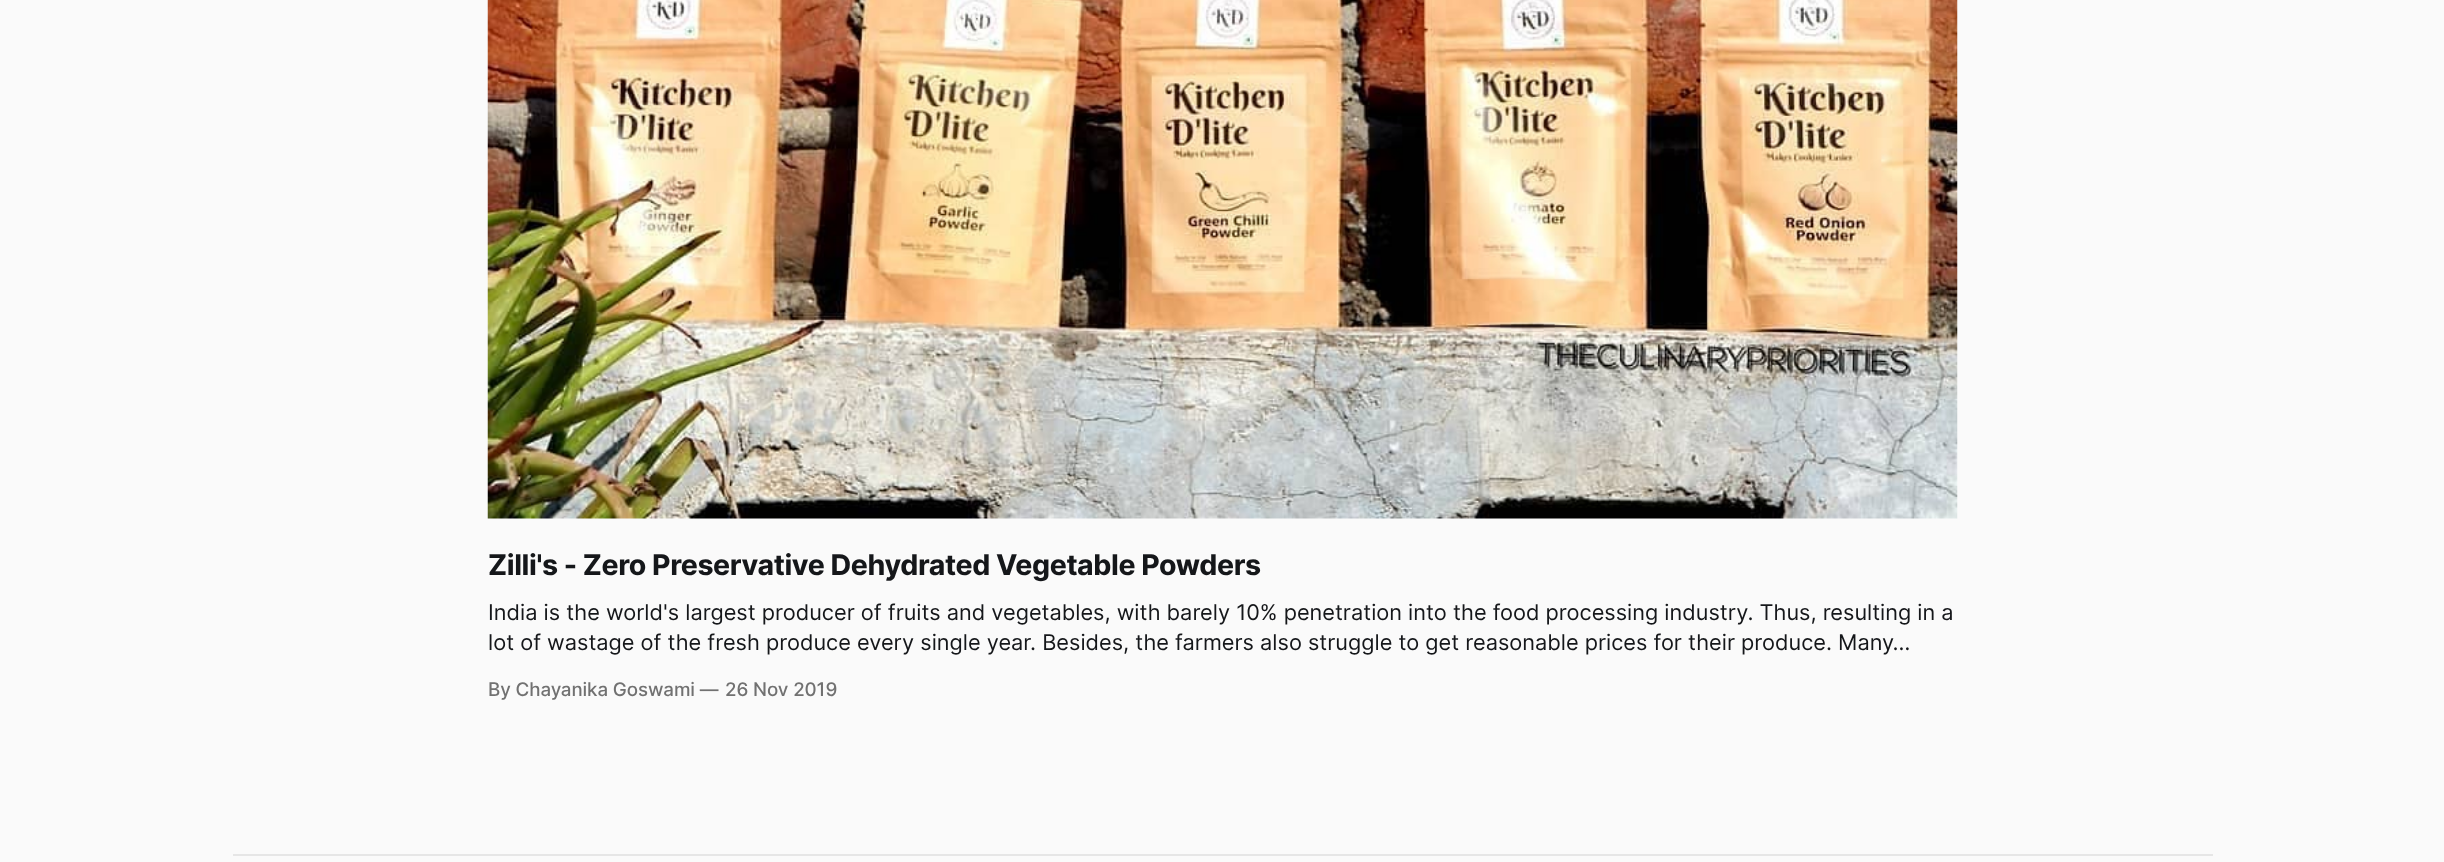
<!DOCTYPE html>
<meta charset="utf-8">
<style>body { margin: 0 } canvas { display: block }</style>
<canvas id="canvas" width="2444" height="862"></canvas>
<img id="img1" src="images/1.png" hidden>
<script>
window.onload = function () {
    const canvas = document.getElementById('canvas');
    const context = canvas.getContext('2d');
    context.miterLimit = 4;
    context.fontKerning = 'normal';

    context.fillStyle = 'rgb(250, 250, 250)';
    context.fillRect(0, 0, 2444, 862);
    context.drawImage(document.getElementById('img1'), 487, 0, 1471, 519);
    context.fillStyle = 'rgb(230, 230, 230)';
    context.fillRect(233, 854, 1980, 2);
    context.letterSpacing = '-0.4px';
    context.font = 'bold 28.5px Inter';
    context.fillStyle = 'rgb(21, 23, 26)';
    context.fillText('Zilli\'s - Zero Preservative Dehydrated Vegetable Powders', 488, 575);
    context.letterSpacing = '0px';
    context.font = '21.75px Inter';
    context.fillText('India is the world\'s largest producer of fruits and vegetables, with barely 10% penetration into the food processing industry. Thus, resulting in a', 488, 620);
    context.fillText('lot of wastage of the fresh produce every single year. Besides, the farmers also struggle to get reasonable prices for their produce. Many…', 488, 650);
    context.letterSpacing = '-0.1px';
    context.font = '500 18.75px Inter';
    context.fillStyle = 'rgb(113, 113, 113)';
    context.fillText('By Chayanika Goswami —', 488, 696);
    context.fillText('26 Nov 2019', 725, 696);
};
</script>
